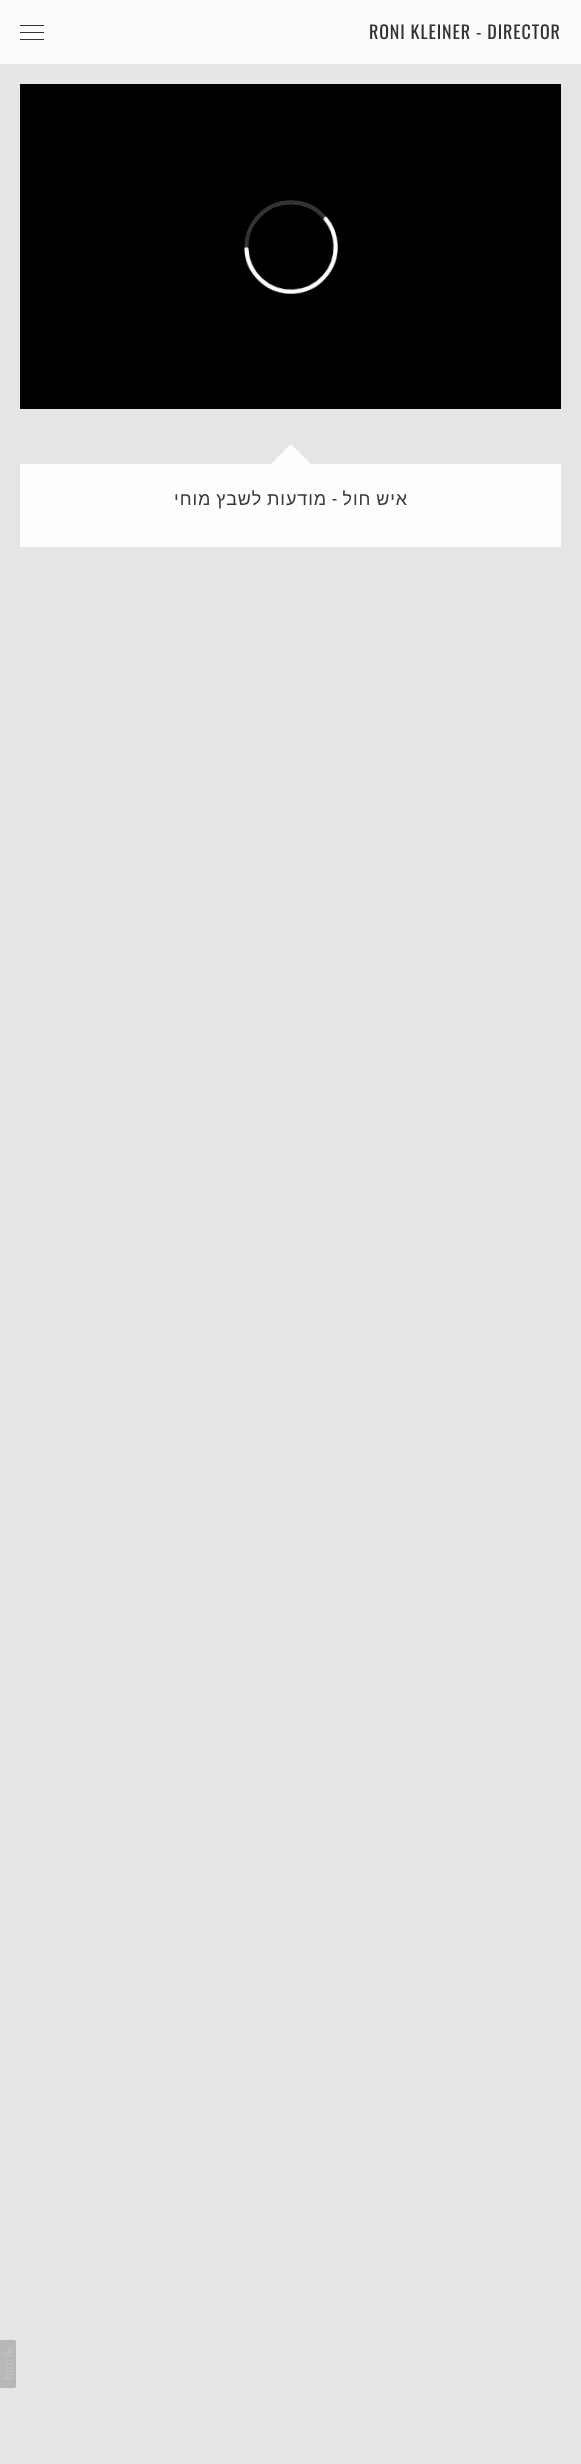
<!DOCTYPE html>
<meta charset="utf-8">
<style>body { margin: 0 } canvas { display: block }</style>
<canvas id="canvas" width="581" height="2464"></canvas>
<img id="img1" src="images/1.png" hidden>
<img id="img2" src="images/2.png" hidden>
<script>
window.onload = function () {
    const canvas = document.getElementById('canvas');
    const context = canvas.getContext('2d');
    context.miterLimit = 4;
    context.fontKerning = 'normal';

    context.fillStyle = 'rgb(229, 229, 229)';
    context.fillRect(0, 0, 581, 2464);
    context.fillStyle = 'rgb(252, 252, 252)';
    context.fillRect(0, 0, 581, 64);
    context.fillStyle = 'rgb(50, 50, 50)';
    context.fillRect(20, 25, 24, 1);
    context.fillRect(20, 32, 24, 1);
    context.fillRect(20, 39, 24, 1);
    context.drawImage(document.getElementById('img1'), 20, 84, 541, 325);
    context.fillStyle = 'rgb(254, 254, 254)';
    context.beginPath();
    context.moveTo(311, 464);
    context.lineTo(271, 464);
    context.lineTo(291, 444);
    context.closePath();
    context.fill();
    context.fillRect(20, 464, 541, 83);
    context.drawImage(document.getElementById('img2'), 0, 2340, 16, 48);
    context.letterSpacing = '0.9px';
    context.font = '18px Oswald';
    context.fillStyle = 'rgb(49, 49, 49)';
    context.fillText('RONI KLEINER - DIRECTOR', 369, 39);
    context.wordSpacing = '-1px';
    context.direction = 'rtl';
    context.font = '18px Liberation Sans';
    context.fillStyle = 'rgb(57, 57, 57)';
    context.fillText('איש חול', 408, 505);
    context.wordSpacing = '0px';
    context.font = '18px Oswald';
    context.fillText('-', 338, 505);
    context.wordSpacing = '-1px';
    context.font = '18px Liberation Sans';
    context.fillText('מודעות לשבץ מוחי', 327, 505);
};
</script>
